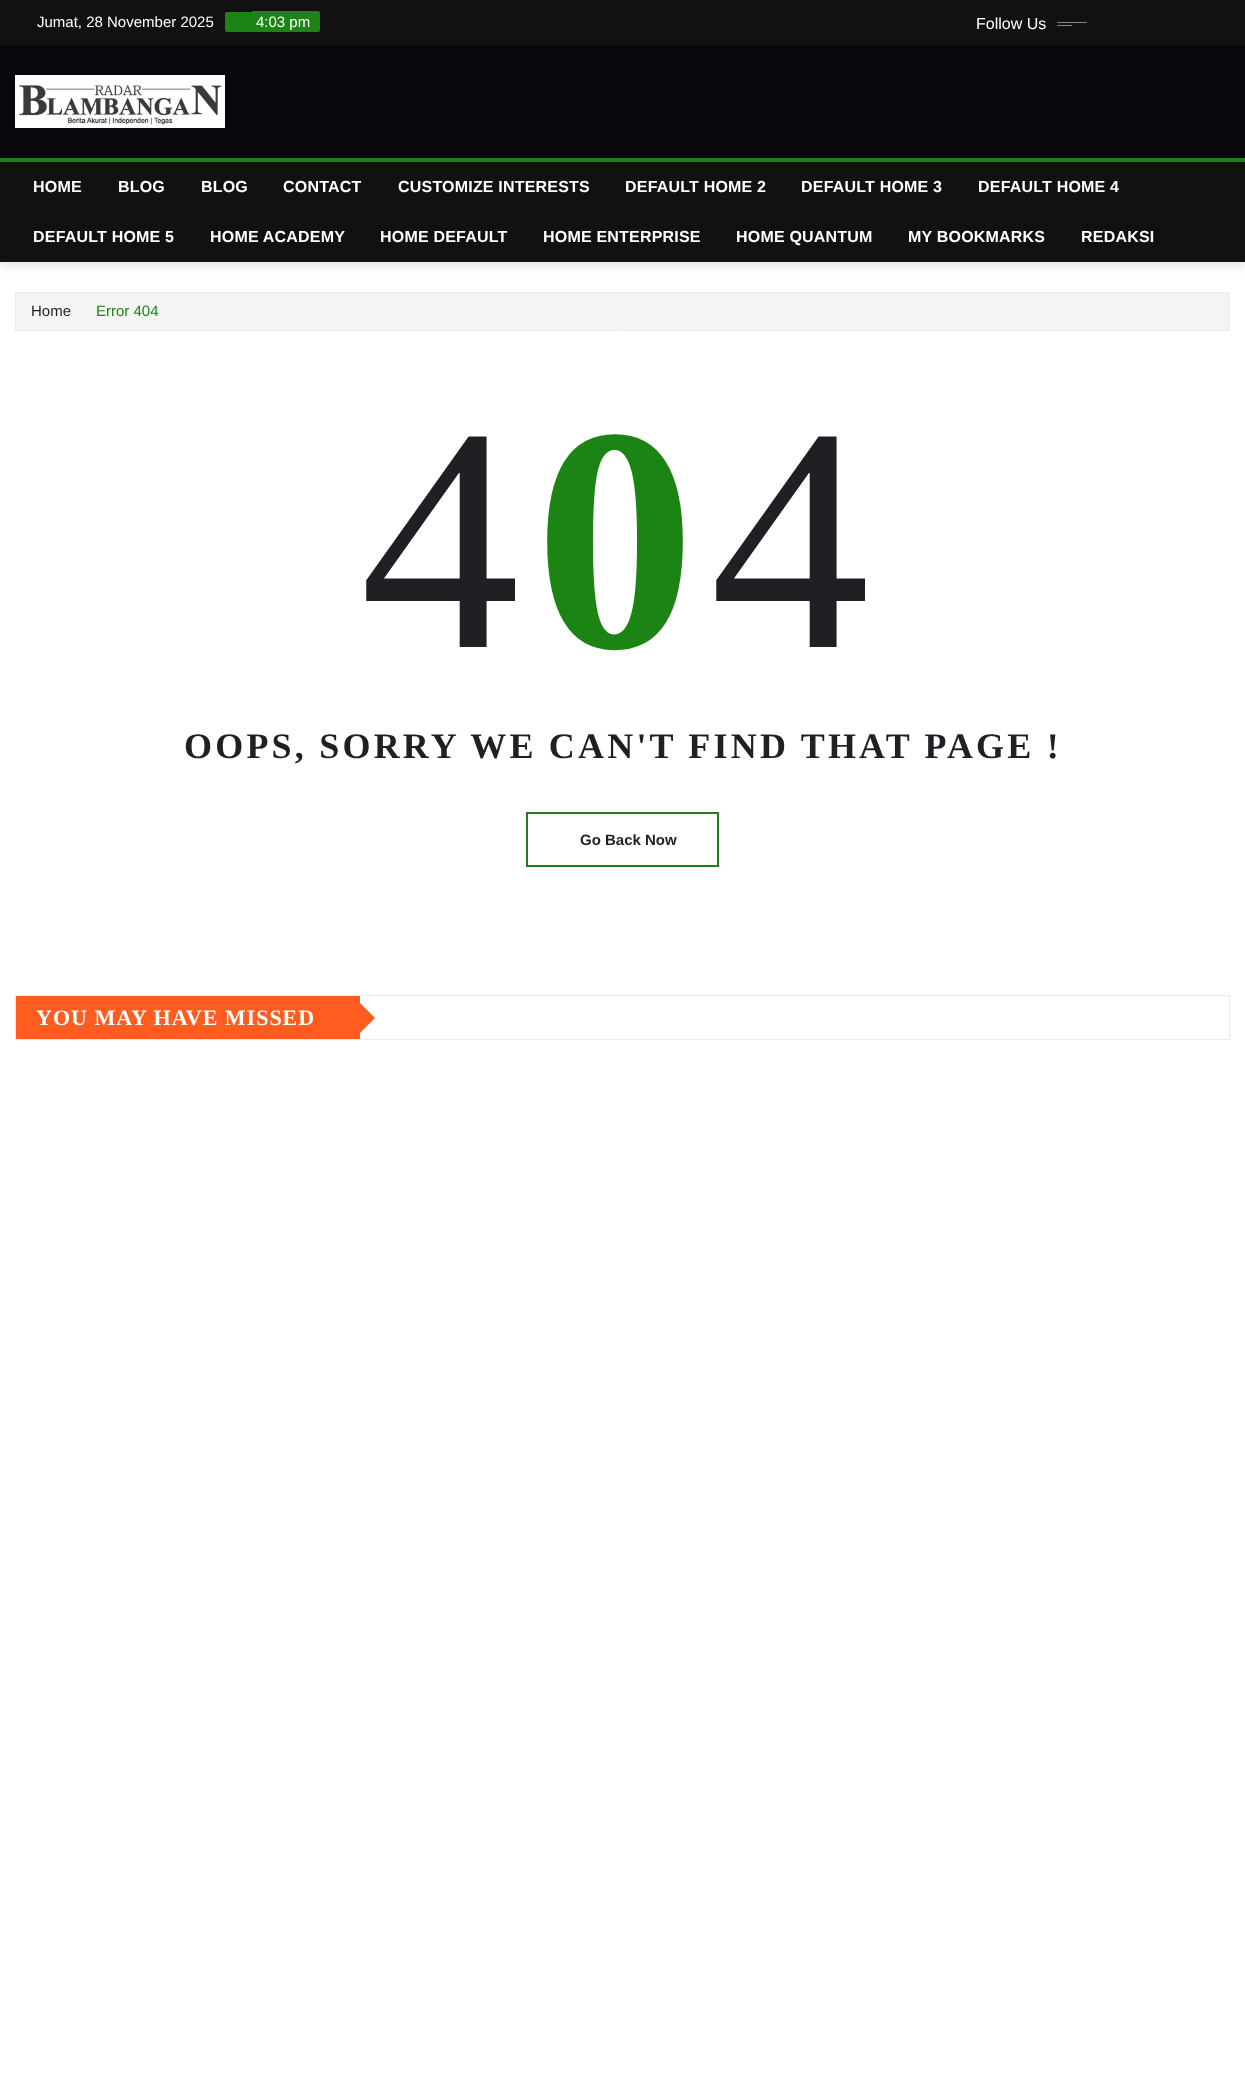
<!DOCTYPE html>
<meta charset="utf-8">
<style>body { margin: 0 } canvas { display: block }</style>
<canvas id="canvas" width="1245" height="2090"></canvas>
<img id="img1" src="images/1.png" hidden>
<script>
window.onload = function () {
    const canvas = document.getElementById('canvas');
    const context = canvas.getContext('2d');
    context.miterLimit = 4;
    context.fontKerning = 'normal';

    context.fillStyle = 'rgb(255, 255, 255)';
    context.fillRect(0, 0, 1245, 2090);
    context.fillStyle = 'rgb(17, 17, 17)';
    context.fillRect(0, 1, 1245, 43);
    context.fillStyle = 'rgb(15, 15, 15)';
    context.fillRect(0, 0, 1245, 1);
    context.fillRect(0, 44, 1245, 1);
    context.fillStyle = 'rgb(27, 132, 21)';
    context.beginPath();
    context.roundRect(225, 12, 27, 20, [2, 0, 0, 2]);
    context.fill();
    context.beginPath();
    context.roundRect(252, 11, 68, 21, [0, 2, 2, 0]);
    context.fill();
    context.fillStyle = 'rgb(136, 136, 136)';
    context.fillRect(1057, 22, 30, 1);
    context.fillRect(1057, 25, 15, 1);
    context.fillStyle = 'rgb(6, 8, 11)';
    context.fillRect(0, 45, 1245, 113);
    context.drawImage(document.getElementById('img1'), 15, 75, 210, 53);
    context.fillStyle = 'rgba(0, 0, 0, 0.1)';
    context.filter = 'blur(5px)';
    context.beginPath();
    context.rect(0, 163, 1245, 104);
    context.fill();
    context.filter = 'none';
    context.fillStyle = 'rgb(17, 17, 17)';
    context.fillRect(0, 162, 1245, 100);
    context.fillStyle = 'rgb(27, 132, 21)';
    context.fillRect(0, 158, 1245, 4);
    context.fillStyle = 'rgb(244, 244, 245)';
    context.beginPath();
    context.rect(15.5, 292.5, 1214, 38);
    context.fill();
    context.strokeStyle = 'rgb(235, 235, 235)';
    context.stroke();
    context.strokeStyle = 'rgb(27, 132, 21)';
    context.lineWidth = 2;
    context.strokeRect(527, 813, 191, 53);
    context.strokeStyle = 'rgb(235, 235, 235)';
    context.lineWidth = 1;
    context.strokeRect(15.5, 995.5, 1214, 44);
    context.fillStyle = 'rgb(255, 93, 32)';
    context.fillRect(16, 996, 344, 43);
    context.beginPath();
    context.moveTo(360, 1033);
    context.lineTo(360, 1003);
    context.lineTo(375, 1018);
    context.closePath();
    context.fill();
    context.font = '15px Liberation Sans';
    context.fillStyle = 'rgb(255, 255, 255)';
    context.fillText('Jumat, 28 November 2025', 37, 27);
    context.fillText('4:03 pm', 256, 27);
    context.font = '16px Liberation Sans';
    context.fillText('Follow Us', 976, 29);
    context.letterSpacing = '0.2px';
    context.font = 'bold 16px Liberation Sans';
    context.fillText('HOME', 33, 192);
    context.fillText('BLOG', 118, 192);
    context.fillText('BLOG', 201, 192);
    context.fillText('CONTACT', 283, 192);
    context.fillText('CUSTOMIZE INTERESTS', 398, 192);
    context.fillText('DEFAULT HOME 2', 625, 192);
    context.fillText('DEFAULT HOME 3', 801, 192);
    context.fillText('DEFAULT HOME 4', 978, 192);
    context.fillText('DEFAULT HOME 5', 33, 242);
    context.fillText('HOME ACADEMY', 210, 242);
    context.fillText('HOME DEFAULT', 380, 242);
    context.fillText('HOME ENTERPRISE', 543, 242);
    context.fillText('HOME QUANTUM', 736, 242);
    context.fillText('MY BOOKMARKS', 908, 242);
    context.fillText('REDAKSI', 1081, 242);
    context.letterSpacing = '0px';
    context.font = '15px Liberation Sans';
    context.fillStyle = 'rgb(31, 32, 36)';
    context.fillText('Home', 31, 316);
    context.fillStyle = 'rgb(27, 132, 21)';
    context.fillText('Error 404', 96, 316);
    context.letterSpacing = '15px';
    context.font = '320px Liberation Serif';
    context.fillStyle = 'rgb(31, 32, 36)';
    context.fillText('4', 360, 647);
    context.font = 'bold 320px Liberation Serif';
    context.fillStyle = 'rgb(27, 132, 21)';
    context.fillText('0', 535, 647);
    context.font = '320px Liberation Serif';
    context.fillStyle = 'rgb(31, 32, 36)';
    context.fillText('4', 710, 647);
    context.letterSpacing = '3.2px';
    context.font = 'bold 36px Liberation Serif';
    context.fillText('OOPS, SORRY WE CAN\'T FIND THAT PAGE !', 184, 758);
    context.letterSpacing = '0px';
    context.font = 'bold 15px Liberation Sans';
    context.fillText('Go Back Now', 580, 845);
    context.letterSpacing = '1px';
    context.font = 'bold 22px Liberation Serif';
    context.fillStyle = 'rgb(255, 255, 255)';
    context.fillText('YOU MAY HAVE MISSED', 36, 1025);
};
</script>
